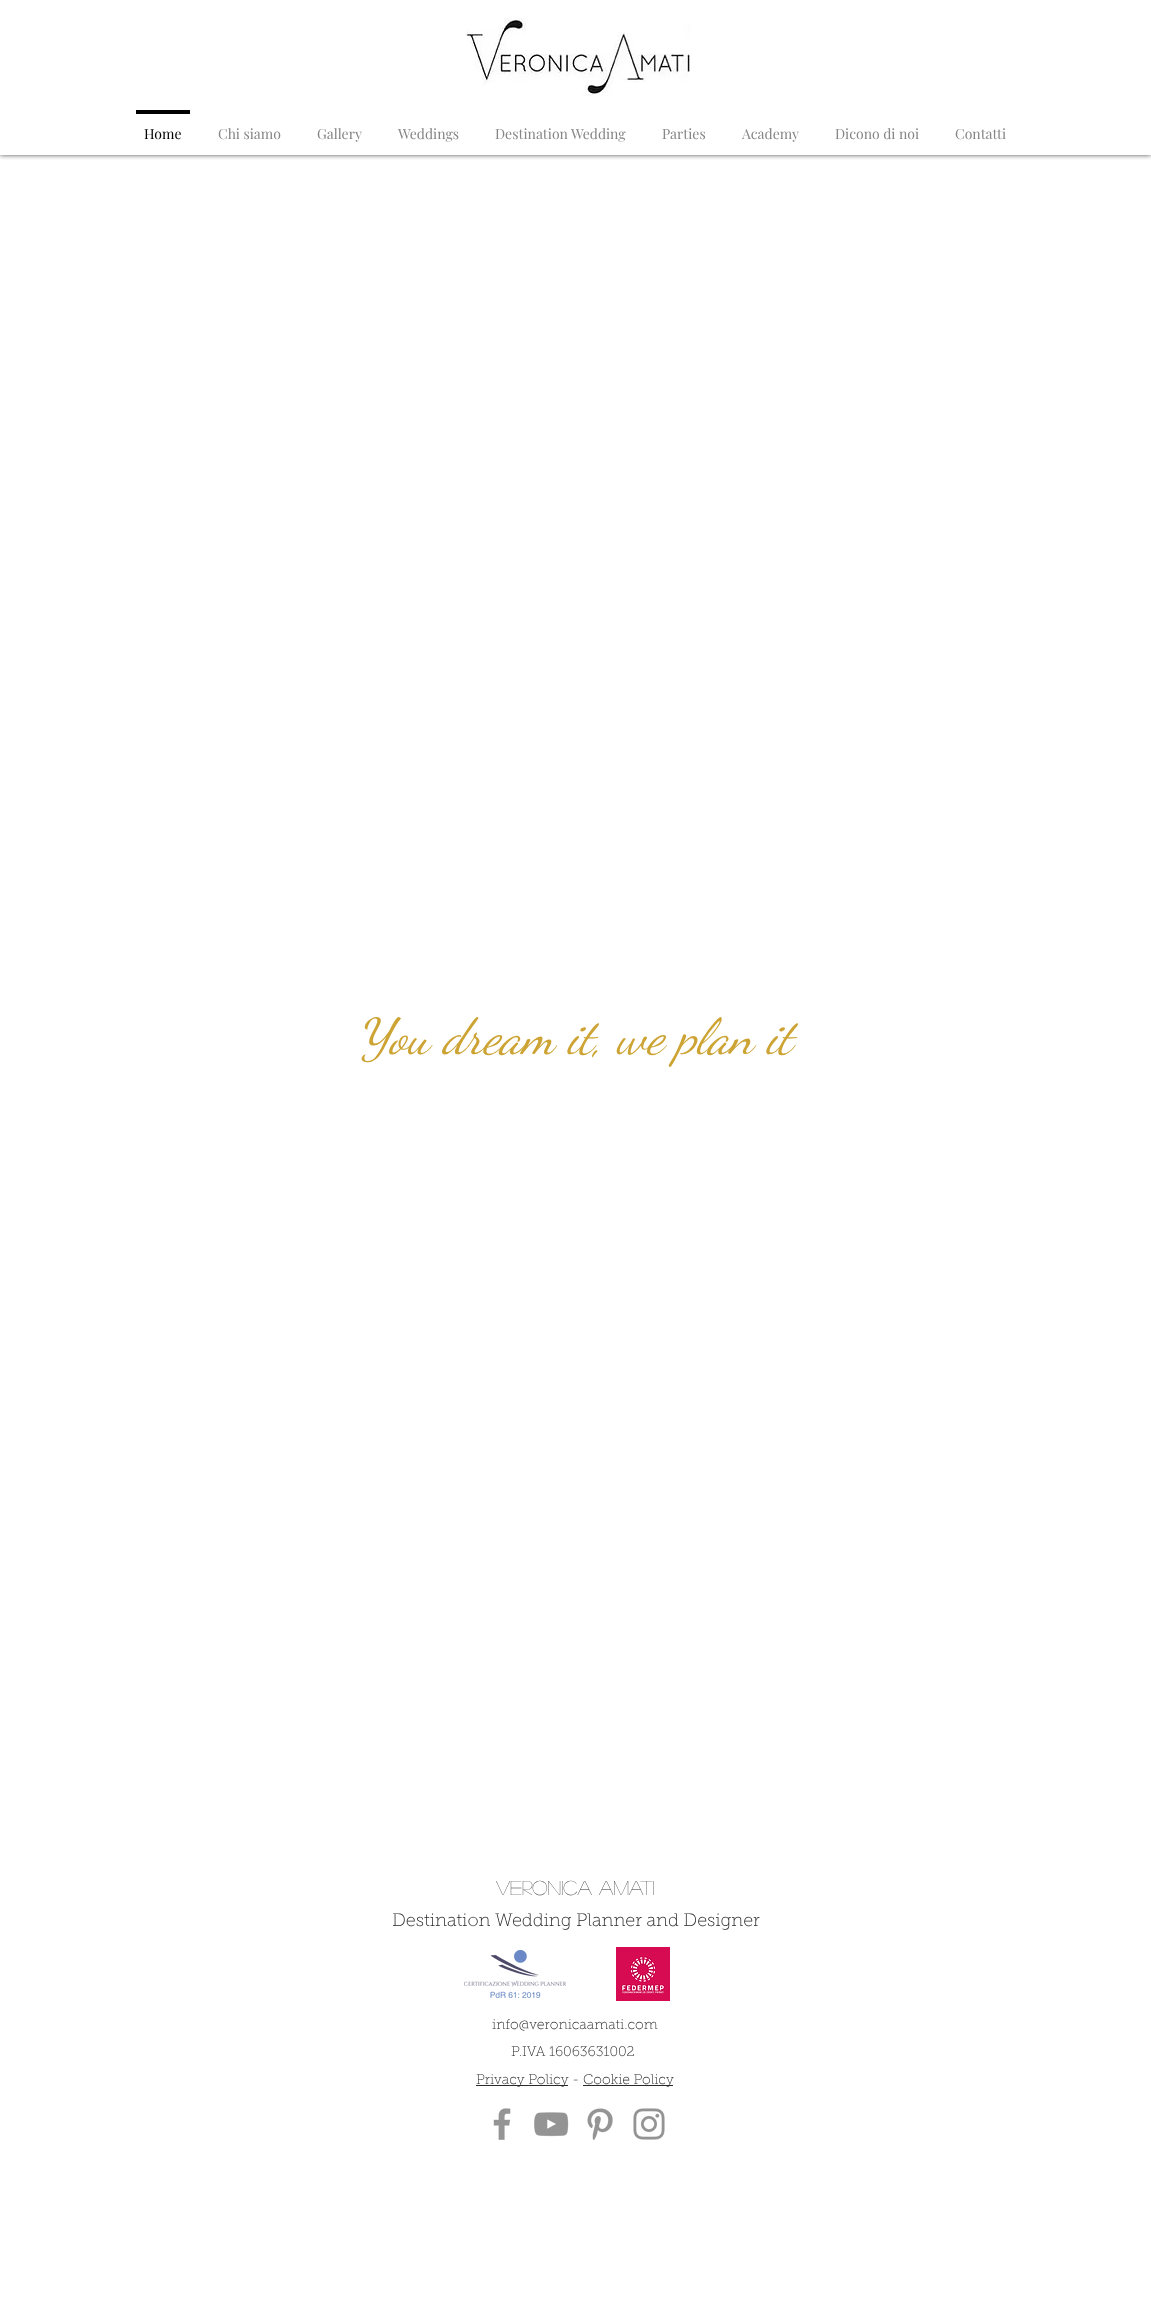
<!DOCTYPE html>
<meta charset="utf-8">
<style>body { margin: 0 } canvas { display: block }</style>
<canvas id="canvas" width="1151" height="2312"></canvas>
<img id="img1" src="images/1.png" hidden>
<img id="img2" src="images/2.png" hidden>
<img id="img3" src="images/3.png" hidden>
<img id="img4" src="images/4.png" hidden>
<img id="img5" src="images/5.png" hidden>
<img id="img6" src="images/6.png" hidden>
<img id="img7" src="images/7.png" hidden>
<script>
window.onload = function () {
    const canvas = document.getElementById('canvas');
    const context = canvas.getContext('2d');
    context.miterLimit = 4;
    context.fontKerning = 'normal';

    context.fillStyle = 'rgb(255, 255, 255)';
    context.fillRect(0, 0, 1151, 2312);
    context.save();
    context.beginPath();
    context.rect(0, 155, 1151, 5);
    context.clip();
    context.fillStyle = 'rgba(0, 0, 0, 0.7)';
    context.filter = 'blur(2.5px)';
    context.beginPath();
    context.rect(0, 0, 1151, 155);
    context.fill();
    context.filter = 'none';
    context.restore();
    context.drawImage(document.getElementById('img1'), 466, 18, 224, 78);
    context.fillStyle = 'rgb(0, 0, 0)';
    context.fillRect(136, 110, 54, 4);
    context.drawImage(document.getElementById('img2'), 464, 1950, 102, 48);
    context.drawImage(document.getElementById('img3'), 616, 1947, 54, 54);
    context.fillStyle = 'rgb(42, 42, 42)';
    context.fillRect(476, 2085, 92, 1);
    context.fillRect(583, 2085, 90, 1);
    context.drawImage(document.getElementById('img4'), 493, 2108, 18, 32);
    context.drawImage(document.getElementById('img5'), 534, 2112, 35, 25);
    context.drawImage(document.getElementById('img6'), 587, 2108, 26, 32);
    context.drawImage(document.getElementById('img7'), 633, 2108, 32, 32);
    context.font = '14px Playfair Display';
    context.fillStyle = 'rgb(0, 0, 0)';
    context.fillText('Home', 144, 139);
    context.fillStyle = 'rgb(133, 133, 133)';
    context.fillText('Chi siamo', 218, 139);
    context.fillText('Gallery', 317, 139);
    context.fillText('Weddings', 398, 139);
    context.fillText('Destination Wedding', 495, 139);
    context.fillText('Parties', 662, 139);
    context.fillText('Academy', 742, 139);
    context.fillText('Dicono di noi', 835, 139);
    context.fillText('Contatti', 955, 139);
    context.font = 'italic 50px Dancing Script';
    context.fillStyle = 'rgb(205, 164, 52)';
    context.fillText('You dream it, we plan it', 357, 1053);
    context.font = '20px "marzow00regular"';
    context.fillStyle = 'rgb(42, 42, 42)';
    context.fillText('Veronica Amati', 496, 1895);
    context.font = '100 18px "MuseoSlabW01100"';
    context.fillText('Destination Wedding Planner and Designer', 392, 1926);
    context.font = '100 14px "MuseoSlabW01100"';
    context.fillText('info@veronicaamati.com', 492, 2029);
    context.fillText('P.IVA 16063631002', 511, 2056);
    context.fillText('Privacy Policy -', 476, 2084);
    context.fillText('Cookie Policy', 583, 2084);
};
</script>
